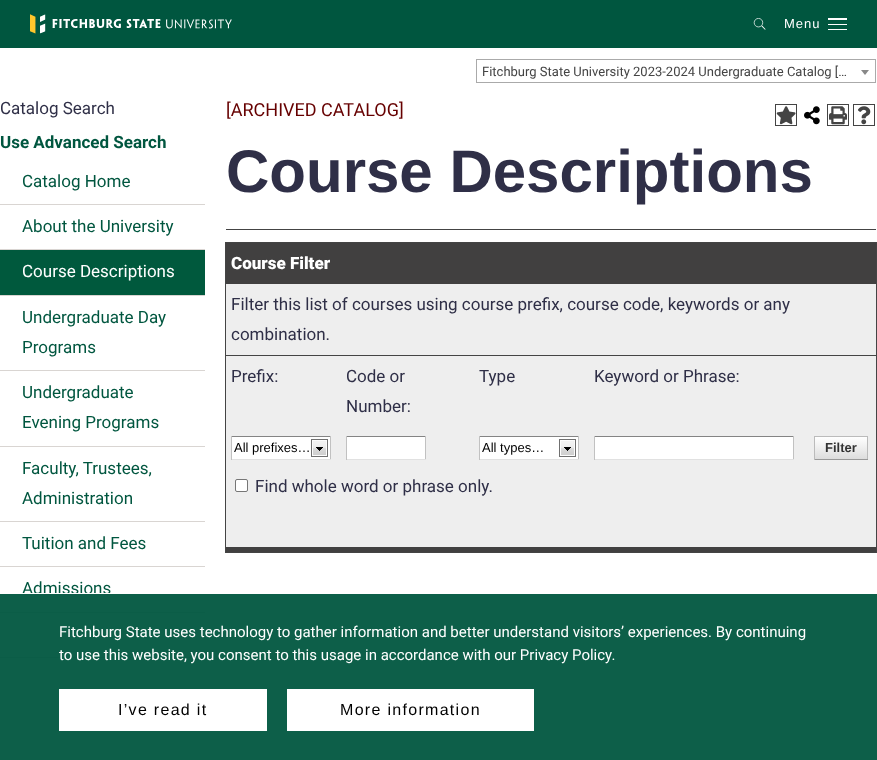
<!DOCTYPE html>
<meta charset="utf-8">
<style>body { margin: 0 } canvas { display: block }</style>
<canvas id="canvas" width="877" height="760"></canvas>
<img id="img1" src="images/1.png" hidden>
<img id="img2" src="images/2.png" hidden>
<img id="img3" src="images/3.png" hidden>
<img id="img4" src="images/4.png" hidden>
<img id="img5" src="images/5.png" hidden>
<img id="img6" src="images/6.png" hidden>
<img id="img7" src="images/7.png" hidden>
<script>
window.onload = function () {
    const canvas = document.getElementById('canvas');
    const context = canvas.getContext('2d');
    context.miterLimit = 4;
    context.fontKerning = 'normal';
    let gradient;

    context.fillStyle = 'rgb(255, 255, 255)';
    context.fillRect(0, 0, 877, 760);
    context.fillStyle = 'rgb(0, 86, 63)';
    context.fillRect(0, 0, 877, 48);
    context.drawImage(document.getElementById('img1'), 30, 14, 202, 20);
    context.drawImage(document.getElementById('img2'), 753, 18, 13, 12);
    context.fillStyle = 'rgb(255, 255, 255)';
    context.fillRect(828, 18, 19, 2);
    context.fillRect(828, 24, 19, 1);
    context.fillRect(828, 29, 19, 1);
    context.strokeStyle = 'rgb(170, 170, 170)';
    context.strokeRect(476.5, 59.5, 399, 23);
    context.fillStyle = 'rgb(136, 136, 136)';
    context.beginPath();
    context.moveTo(861, 70);
    context.lineTo(869, 70);
    context.lineTo(865, 75);
    context.closePath();
    context.fill();
    context.fillStyle = 'rgb(217, 213, 210)';
    context.fillRect(0, 204, 205, 1);
    context.fillRect(0, 249, 205, 1);
    context.fillRect(0, 295, 205, 1);
    context.fillStyle = 'rgb(0, 89, 61)';
    context.fillRect(0, 250, 205, 45);
    context.fillStyle = 'rgb(217, 213, 210)';
    context.fillRect(0, 370, 205, 1);
    context.fillRect(0, 446, 205, 1);
    context.fillRect(0, 521, 205, 1);
    context.fillRect(0, 566, 205, 1);
    context.fillRect(0, 612, 205, 1);
    context.fillRect(0, 657, 205, 1);
    context.strokeStyle = 'rgb(68, 68, 68)';
    context.strokeRect(775.5, 104.5, 21, 21);
    context.drawImage(document.getElementById('img3'), 776, 106, 20, 19);
    context.drawImage(document.getElementById('img4'), 804, 106, 16, 19);
    context.strokeRect(827.5, 104.5, 21, 21);
    context.drawImage(document.getElementById('img5'), 829, 106, 18, 19);
    context.strokeRect(853.5, 104.5, 21, 21);
    context.drawImage(document.getElementById('img6'), 858, 106, 13, 19);
    context.fillStyle = 'rgb(68, 68, 68)';
    context.fillRect(226, 229, 650, 1);
    context.strokeRect(225.5, 242.5, 651, 310);
    context.fillStyle = 'rgb(65, 64, 64)';
    context.fillRect(226, 243, 650, 41);
    context.fillStyle = 'rgb(238, 238, 238)';
    context.fillRect(226, 284, 650, 71);
    context.fillStyle = 'rgb(68, 68, 68)';
    context.fillRect(226, 355, 650, 1);
    context.fillStyle = 'rgb(238, 238, 238)';
    context.fillRect(226, 356, 650, 70);
    context.fillRect(226, 426, 650, 121);
    context.fillStyle = 'rgb(255, 255, 255)';
    context.fillRect(232, 437, 98, 22);
    context.drawImage(document.getElementById('img7'), 311, 439, 17, 18);
    context.fillStyle = 'rgb(132, 132, 132)';
    context.fillRect(231, 436, 100, 1);
    context.fillStyle = 'rgb(193, 193, 193)';
    context.fillRect(330, 436, 1, 24);
    context.fillStyle = 'rgb(225, 225, 225)';
    context.fillRect(231, 459, 100, 1);
    context.fillStyle = 'rgb(193, 193, 193)';
    context.fillRect(231, 436, 1, 24);
    context.fillStyle = 'rgb(255, 255, 255)';
    context.fillRect(347, 437, 78, 22);
    context.fillStyle = 'rgb(132, 132, 132)';
    context.fillRect(346, 436, 80, 1);
    context.fillStyle = 'rgb(193, 193, 193)';
    context.fillRect(425, 436, 1, 24);
    context.fillStyle = 'rgb(225, 225, 225)';
    context.fillRect(346, 459, 80, 1);
    context.fillStyle = 'rgb(193, 193, 193)';
    context.fillRect(346, 436, 1, 24);
    context.fillStyle = 'rgb(255, 255, 255)';
    context.fillRect(480, 437, 98, 22);
    context.drawImage(document.getElementById('img7'), 559, 439, 17, 18);
    context.fillStyle = 'rgb(132, 132, 132)';
    context.fillRect(479, 436, 100, 1);
    context.fillStyle = 'rgb(193, 193, 193)';
    context.fillRect(578, 436, 1, 24);
    context.fillStyle = 'rgb(225, 225, 225)';
    context.fillRect(479, 459, 100, 1);
    context.fillStyle = 'rgb(193, 193, 193)';
    context.fillRect(479, 436, 1, 24);
    context.fillStyle = 'rgb(255, 255, 255)';
    context.fillRect(595, 437, 198, 22);
    context.fillStyle = 'rgb(132, 132, 132)';
    context.fillRect(594, 436, 200, 1);
    context.fillStyle = 'rgb(193, 193, 193)';
    context.fillRect(793, 436, 1, 24);
    context.fillStyle = 'rgb(225, 225, 225)';
    context.fillRect(594, 459, 200, 1);
    context.fillStyle = 'rgb(193, 193, 193)';
    context.fillRect(594, 436, 1, 24);
    gradient = context.createLinearGradient(841, 437, 841, 459);
    gradient.addColorStop(0, 'rgb(255, 255, 255)');
    gradient.addColorStop(1, 'rgb(221, 221, 221)');
    context.fillStyle = gradient;
    context.fillRect(815, 437, 52, 22);
    context.fillStyle = 'rgb(187, 187, 187)';
    context.fillRect(814, 436, 54, 1);
    context.fillRect(867, 436, 1, 24);
    context.fillStyle = 'rgb(153, 153, 153)';
    context.fillRect(814, 459, 54, 1);
    context.fillStyle = 'rgb(187, 187, 187)';
    context.fillRect(814, 436, 1, 24);
    context.fillStyle = 'rgb(255, 255, 255)';
    context.beginPath();
    context.roundRect(235.5, 479.5, 12, 12, 1.5);
    context.fill();
    context.strokeStyle = 'rgb(118, 118, 118)';
    context.stroke();
    context.fillStyle = 'rgb(65, 64, 64)';
    context.fillRect(226, 547, 650, 5);
    context.letterSpacing = '1px';
    context.font = '13px Liberation Sans';
    context.fillStyle = 'rgb(255, 255, 255)';
    context.fillText('Menu', 784, 28);
    context.letterSpacing = '0px';
    context.font = '13px Roboto';
    context.fillStyle = 'rgb(68, 68, 68)';
    context.fillText('Fitchburg State University 2023-2024 Undergraduate Catalog […', 482, 76);
    context.font = '17px Roboto';
    context.fillStyle = 'rgb(47, 47, 71)';
    context.fillText('Catalog Search', 0, 114);
    context.font = 'bold 17px Roboto';
    context.fillStyle = 'rgb(0, 86, 63)';
    context.fillText('Use Advanced Search', 0, 148);
    context.font = '17px Roboto';
    context.fillText('Catalog Home', 22, 187);
    context.fillText('About the University', 22, 232);
    context.fillStyle = 'rgb(255, 255, 255)';
    context.fillText('Course Descriptions', 22, 277);
    context.fillStyle = 'rgb(0, 86, 63)';
    context.fillText('Undergraduate Day', 22, 323);
    context.fillText('Programs', 22, 353);
    context.fillText('Undergraduate', 22, 398);
    context.fillText('Evening Programs', 22, 428);
    context.fillText('Faculty, Trustees,', 22, 474);
    context.fillText('Administration', 22, 504);
    context.fillText('Tuition and Fees', 22, 549);
    context.fillText('Admissions', 22, 594);
    context.font = '18px Roboto';
    context.fillStyle = 'rgb(102, 0, 0)';
    context.fillText('[ARCHIVED CATALOG]', 226, 116);
    context.font = 'bold 60px Liberation Sans';
    context.fillStyle = 'rgb(47, 47, 71)';
    context.fillText('Course Descriptions', 226, 192);
    context.font = '900 17px Roboto';
    context.fillStyle = 'rgb(255, 255, 255)';
    context.fillText('Course Filter', 231, 269);
    context.font = '17px Roboto';
    context.fillStyle = 'rgb(47, 47, 71)';
    context.fillText('Filter this list of courses using course prefix, course code, keywords or any', 231, 310);
    context.fillText('combination.', 231, 340);
    context.fillText('Prefix:', 231, 382);
    context.fillText('Code or', 346, 382);
    context.fillText('Number:', 346, 412);
    context.fillText('Type', 479, 382);
    context.fillText('Keyword or Phrase:', 594, 382);
    context.font = '13px Liberation Sans';
    context.fillStyle = 'rgb(0, 0, 0)';
    context.fillText('All prefixes…', 234, 452);
    context.fillText('All types…', 482, 452);
    context.font = 'bold 13px Liberation Sans';
    context.fillStyle = 'rgb(51, 51, 51)';
    context.fillText('Filter', 825, 452);
    context.font = '17px Roboto';
    context.fillStyle = 'rgb(47, 47, 71)';
    context.fillText('Find whole word or phrase only.', 255, 492);
    context.fillStyle = 'rgba(0, 86, 63, 0.95)';
    context.fillRect(0, 594, 877, 166);
    context.fillStyle = 'rgb(255, 255, 255)';
    context.fillRect(22, 593, 88, 1);
    context.font = '15px Roboto';
    context.fillText('Fitchburg State uses technology to gather information and better understand visitors’ experiences. By continuing', 59, 637);
    context.fillText('to use this website, you consent to this usage in accordance with our Privacy Policy.', 59, 660);
    context.fillRect(59, 689, 208, 42);
    context.letterSpacing = '1.3px';
    context.font = '16px Liberation Sans';
    context.fillStyle = 'rgb(0, 0, 0)';
    context.fillText('I’ve read it', 118, 715);
    context.fillStyle = 'rgb(255, 255, 255)';
    context.fillRect(287, 689, 247, 42);
    context.fillStyle = 'rgb(0, 0, 0)';
    context.fillText('More information', 340, 715);
};
</script>
